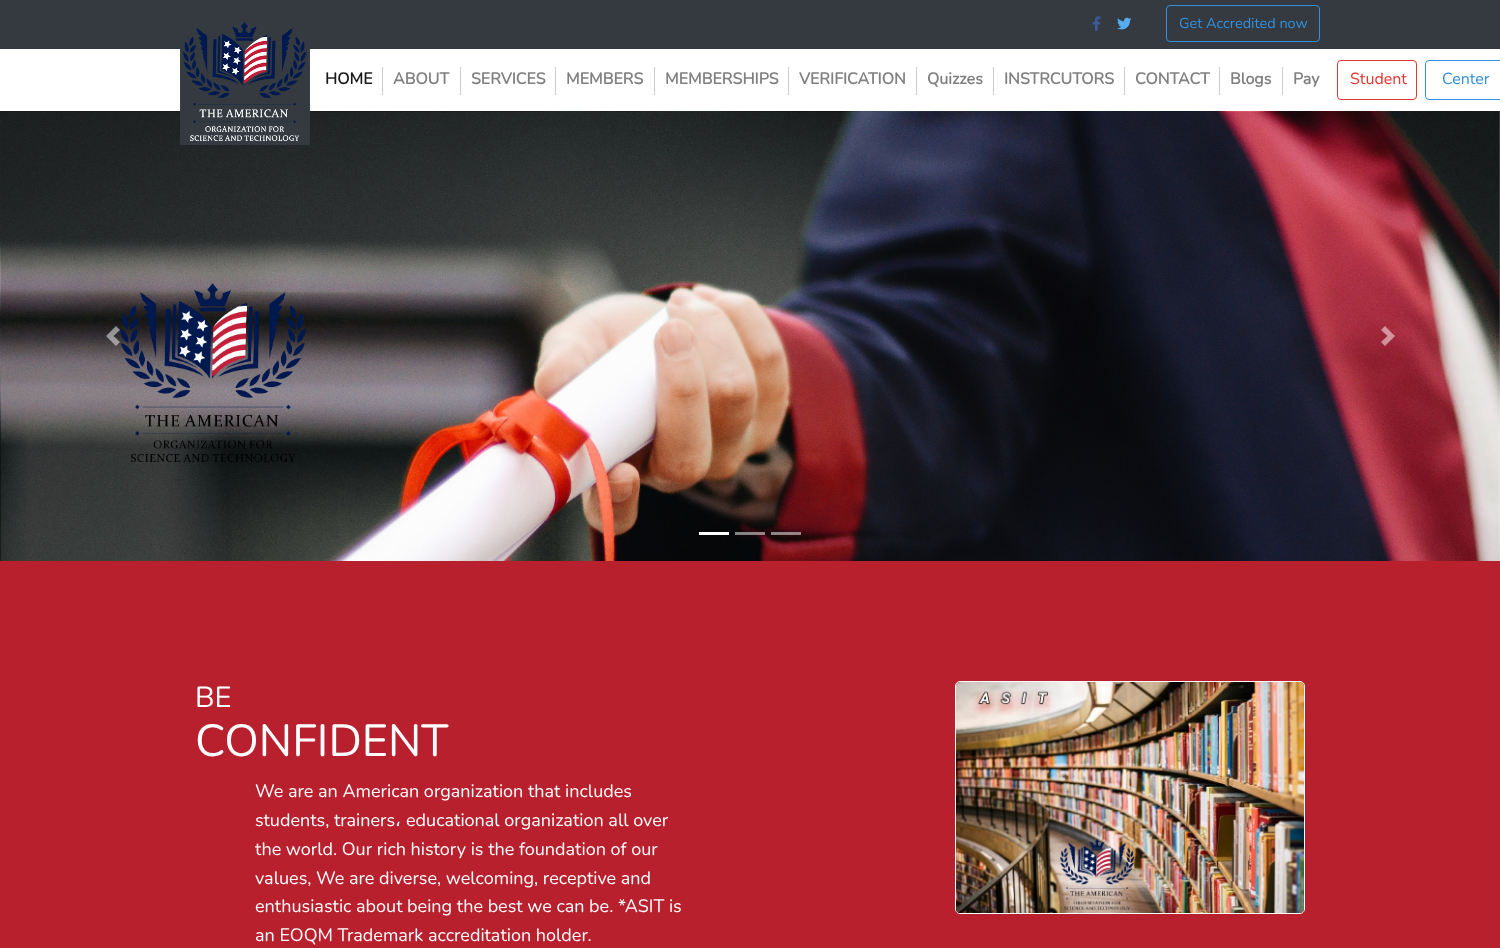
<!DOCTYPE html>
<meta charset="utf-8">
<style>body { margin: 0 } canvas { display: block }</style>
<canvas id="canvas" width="1500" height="948"></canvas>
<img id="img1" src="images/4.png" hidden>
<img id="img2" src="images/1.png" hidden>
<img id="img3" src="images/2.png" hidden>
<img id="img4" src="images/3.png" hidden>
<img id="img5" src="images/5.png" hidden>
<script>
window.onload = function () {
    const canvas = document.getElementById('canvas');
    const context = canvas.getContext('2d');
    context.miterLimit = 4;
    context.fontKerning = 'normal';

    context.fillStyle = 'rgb(255, 255, 255)';
    context.fillRect(0, 0, 1500, 948);
    context.fillStyle = 'rgb(52, 58, 64)';
    context.fillRect(0, 0, 1500, 49);
    context.drawImage(document.getElementById('img1'), 0, 111, 1500, 450);
    context.drawImage(document.getElementById('img2'), 180, 22, 130, 123);
    context.drawImage(document.getElementById('img3'), 1092, 16, 9, 15);
    context.drawImage(document.getElementById('img4'), 1117, 17, 15, 13);
    context.beginPath();
    context.roundRect(1166.5, 5.5, 153, 36, 3.5);
    context.strokeStyle = 'rgb(52, 144, 220)';
    context.stroke();
    context.fillStyle = 'rgb(204, 204, 204)';
    context.fillRect(382, 67, 1, 28);
    context.fillRect(460, 67, 1, 28);
    context.fillRect(555, 67, 1, 28);
    context.fillRect(654, 67, 1, 28);
    context.fillRect(788, 67, 1, 28);
    context.fillRect(916, 67, 1, 28);
    context.fillRect(993, 67, 1, 28);
    context.fillRect(1124, 67, 1, 28);
    context.fillRect(1219, 67, 1, 28);
    context.fillRect(1282, 67, 1, 28);
    context.beginPath();
    context.roundRect(1337.5, 60.5, 79, 39, 3.5);
    context.strokeStyle = 'rgb(227, 52, 47)';
    context.stroke();
    context.beginPath();
    context.roundRect(1425.5, 60.5, 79, 39, 3.5);
    context.strokeStyle = 'rgb(52, 144, 220)';
    context.stroke();
    context.fillStyle = 'rgba(255, 255, 255, 0.5)';
    context.beginPath();
    context.moveTo(116, 326);
    context.lineTo(106, 336);
    context.lineTo(116, 346);
    context.lineTo(120, 342);
    context.lineTo(113.5, 336);
    context.lineTo(120, 330);
    context.closePath();
    context.fill();
    context.beginPath();
    context.moveTo(1385, 326);
    context.lineTo(1381, 330);
    context.lineTo(1387.5, 336);
    context.lineTo(1381, 342);
    context.lineTo(1385, 346);
    context.lineTo(1395, 336);
    context.closePath();
    context.fill();
    context.fillStyle = 'rgb(255, 255, 255)';
    context.fillRect(699, 532, 30, 3);
    context.fillStyle = 'rgba(255, 255, 255, 0.5)';
    context.fillRect(735, 532, 30, 3);
    context.fillRect(771, 532, 30, 3);
    context.fillStyle = 'rgb(185, 32, 45)';
    context.fillRect(0, 561, 1500, 387);
    context.beginPath();
    context.roundRect(955.5, 681.5, 349, 232, 4.5);
    context.strokeStyle = 'rgb(255, 255, 255)';
    context.stroke();
    context.drawImage(document.getElementById('img5'), 956, 682, 348, 231);
    context.font = '200 14.5px Nunito';
    context.fillStyle = 'rgb(52, 144, 220)';
    context.fillText('Get Accredited now', 1179, 28);
    context.font = 'bold 16px Nunito';
    context.fillStyle = 'rgb(26, 26, 26)';
    context.fillText('HOME', 325, 84);
    context.fillStyle = 'rgb(128, 128, 128)';
    context.fillText('ABOUT', 393, 84);
    context.fillText('SERVICES', 471, 84);
    context.fillText('MEMBERS', 566, 84);
    context.fillText('MEMBERSHIPS', 665, 84);
    context.fillText('VERIFICATION', 799, 84);
    context.fillText('Quizzes', 927, 84);
    context.fillText('INSTRCUTORS', 1004, 84);
    context.fillText('CONTACT', 1135, 84);
    context.fillText('Blogs', 1230, 84);
    context.fillText('Pay', 1293, 84);
    context.font = '200 16px Nunito';
    context.fillStyle = 'rgb(227, 52, 47)';
    context.fillText('Student', 1350, 84);
    context.fillStyle = 'rgb(52, 144, 220)';
    context.fillText('Center', 1442, 84);
    context.font = '200 29px Nunito';
    context.fillStyle = 'rgb(255, 255, 255)';
    context.fillText('BE', 195, 707);
    context.font = '200 45px Nunito';
    context.fillText('CONFIDENT', 195, 756);
    context.font = '200 18px Nunito';
    context.fillText('We are an American organization that includes', 255, 797);
    context.fillText('students, trainers', 255, 826);
    context.font = '18px DejaVu Sans';
    context.fillText('،', 395, 826);
    context.font = '200 18px Nunito';
    context.fillText('educational organization all over', 406, 826);
    context.fillText('the world. Our rich history is the foundation of our', 255, 855);
    context.fillText('values, We are diverse, welcoming, receptive and', 255, 884);
    context.fillText('enthusiastic about being the best we can be. *ASIT is', 255, 912);
    context.fillText('an EOQM Trademark accreditation holder.', 255, 941);
};
</script>
